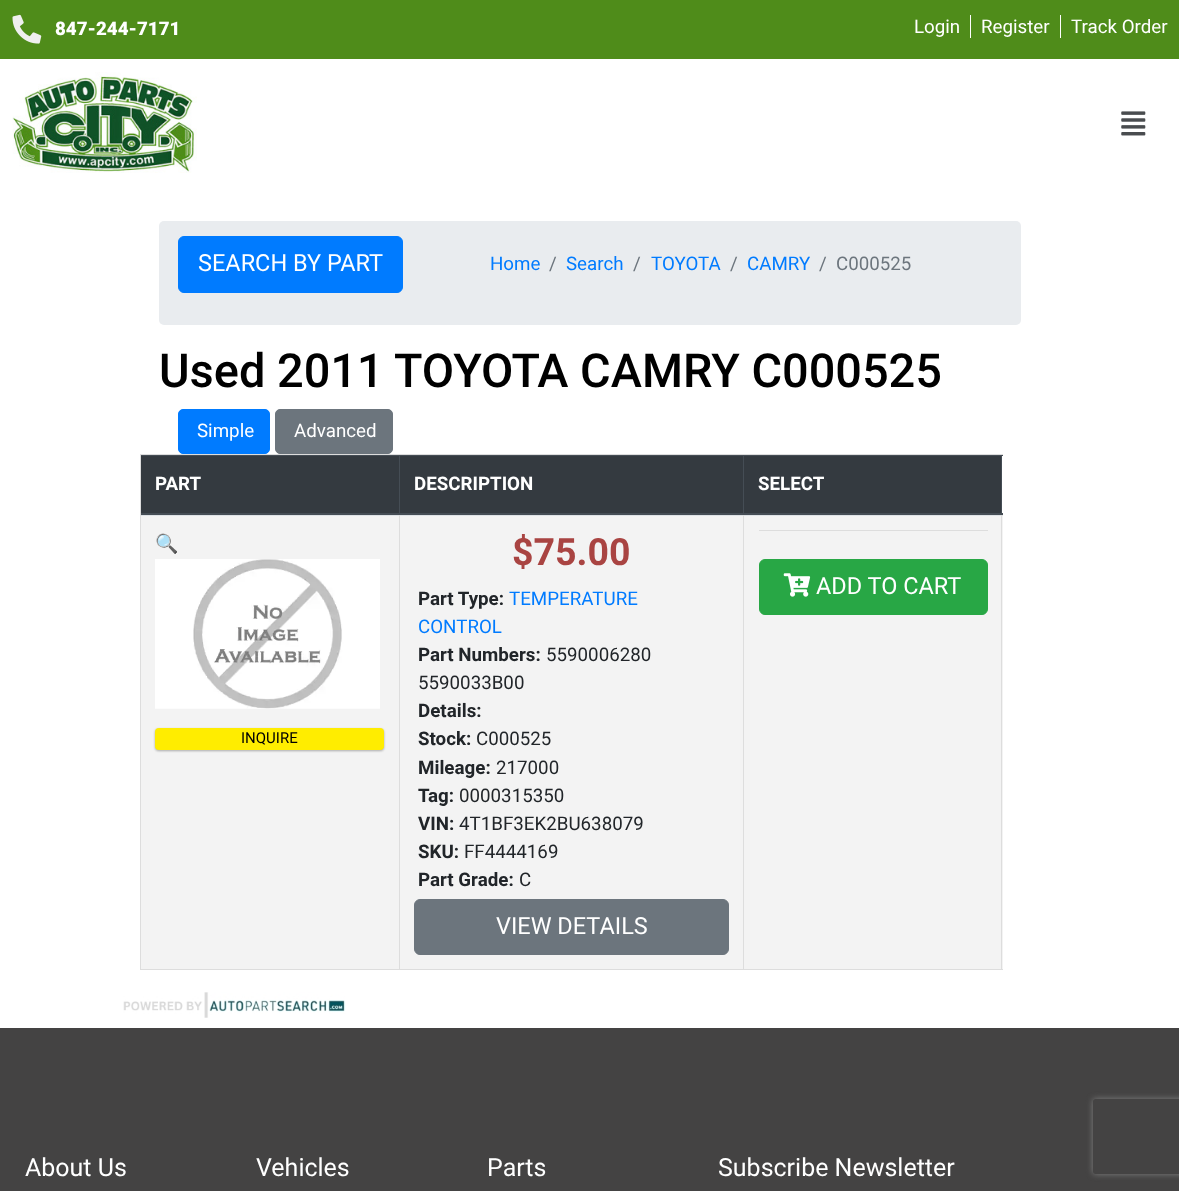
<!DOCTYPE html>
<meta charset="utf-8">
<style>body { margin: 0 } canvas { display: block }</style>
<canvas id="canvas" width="1179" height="1191"></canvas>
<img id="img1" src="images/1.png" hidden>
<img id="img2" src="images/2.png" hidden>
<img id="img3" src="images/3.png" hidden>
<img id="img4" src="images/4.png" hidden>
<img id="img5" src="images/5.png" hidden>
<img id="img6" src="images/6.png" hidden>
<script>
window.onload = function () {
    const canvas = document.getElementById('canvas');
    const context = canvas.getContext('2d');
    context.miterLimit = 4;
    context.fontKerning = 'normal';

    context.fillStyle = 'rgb(255, 255, 255)';
    context.fillRect(0, 0, 1179, 1191);
    context.fillStyle = 'rgb(79, 140, 26)';
    context.fillRect(0, 0, 1179, 59);
    context.drawImage(document.getElementById('img1'), 12, 14, 30, 30);
    context.fillStyle = 'rgb(254, 254, 254)';
    context.fillRect(970, 15, 1, 23);
    context.fillRect(1060, 15, 1, 23);
    context.drawImage(document.getElementById('img2'), 12, 72, 185, 101);
    context.drawImage(document.getElementById('img3'), 1121, 111, 25, 25);
    context.fillStyle = 'rgb(233, 236, 239)';
    context.beginPath();
    context.roundRect(159, 221, 862, 104, 5);
    context.fill();
    context.fillStyle = 'rgb(0, 123, 255)';
    context.beginPath();
    context.roundRect(178.5, 236.5, 224, 56, 5.5);
    context.fill();
    context.strokeStyle = 'rgb(0, 123, 255)';
    context.stroke();
    context.beginPath();
    context.roundRect(178.5, 409.5, 91, 44, 4.5);
    context.fill();
    context.stroke();
    context.fillStyle = 'rgb(108, 117, 125)';
    context.beginPath();
    context.roundRect(275.5, 409.5, 117, 44, 4.5);
    context.fill();
    context.strokeStyle = 'rgb(108, 117, 125)';
    context.stroke();
    context.fillStyle = 'rgb(221, 221, 221)';
    context.fillRect(140, 454, 863, 1);
    context.fillRect(140, 454, 1, 516);
    context.fillStyle = 'rgb(52, 58, 64)';
    context.fillRect(141, 456, 258, 57);
    context.fillStyle = 'rgb(69, 77, 85)';
    context.fillRect(141, 455, 862, 1);
    context.fillRect(399, 455, 1, 60);
    context.fillRect(141, 513, 259, 2);
    context.fillStyle = 'rgb(52, 58, 64)';
    context.fillRect(400, 456, 343, 57);
    context.fillStyle = 'rgb(69, 77, 85)';
    context.fillRect(743, 455, 1, 60);
    context.fillRect(400, 513, 344, 2);
    context.fillStyle = 'rgb(52, 58, 64)';
    context.fillRect(744, 456, 257, 57);
    context.fillStyle = 'rgb(69, 77, 85)';
    context.fillRect(1001, 455, 1, 60);
    context.fillRect(744, 513, 259, 2);
    context.fillStyle = 'rgb(243, 243, 243)';
    context.fillRect(141, 516, 862, 453);
    context.fillStyle = 'rgb(222, 226, 230)';
    context.fillRect(141, 515, 259, 1);
    context.fillStyle = 'rgb(221, 221, 221)';
    context.fillRect(399, 515, 1, 455);
    context.fillRect(141, 969, 259, 1);
    context.drawImage(document.getElementById('img4'), 155, 559, 225, 150);
    context.fillStyle = 'rgba(0, 0, 0, 0.3)';
    context.filter = 'blur(1px)';
    context.beginPath();
    context.roundRect(155, 729, 229, 22, 4);
    context.fill();
    context.filter = 'none';
    context.fillStyle = 'rgb(255, 237, 0)';
    context.beginPath();
    context.roundRect(155, 728, 229, 22, 4);
    context.fill();
    context.fillStyle = 'rgb(222, 226, 230)';
    context.fillRect(400, 515, 603, 1);
    context.fillStyle = 'rgb(221, 221, 221)';
    context.fillRect(743, 515, 1, 455);
    context.fillRect(400, 969, 344, 1);
    context.fillStyle = 'rgb(108, 117, 125)';
    context.beginPath();
    context.roundRect(414.5, 899.5, 314, 55, 5.5);
    context.fill();
    context.stroke();
    context.fillStyle = 'rgb(221, 221, 221)';
    context.fillRect(1001, 515, 1, 455);
    context.fillRect(744, 969, 259, 1);
    context.fillRect(759, 530, 229, 1);
    context.fillStyle = 'rgb(40, 167, 69)';
    context.beginPath();
    context.roundRect(759.5, 559.5, 228, 55, 5.5);
    context.fill();
    context.strokeStyle = 'rgb(40, 167, 69)';
    context.stroke();
    context.drawImage(document.getElementById('img5'), 783, 573, 28, 24);
    context.drawImage(document.getElementById('img6'), 123, 992, 223, 26);
    context.fillStyle = 'rgb(68, 67, 67)';
    context.fillRect(0, 1028, 1179, 163);
    context.save();
    context.beginPath();
    context.moveTo(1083, 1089);
    context.lineTo(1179, 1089);
    context.lineTo(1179, 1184);
    context.lineTo(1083, 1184);
    context.closePath();
    context.moveTo(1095.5, 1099);
    context.lineTo(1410.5, 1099);
    context.bezierCurveTo(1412, 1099, 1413, 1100, 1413, 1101.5);
    context.lineTo(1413, 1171.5);
    context.bezierCurveTo(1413, 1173, 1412, 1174, 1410.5, 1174);
    context.lineTo(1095.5, 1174);
    context.bezierCurveTo(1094, 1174, 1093, 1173, 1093, 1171.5);
    context.lineTo(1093, 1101.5);
    context.bezierCurveTo(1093, 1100, 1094, 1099, 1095.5, 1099);
    context.closePath();
    context.clip('evenodd');
    context.fillStyle = 'rgb(128, 128, 128)';
    context.filter = 'blur(3px)';
    context.beginPath();
    context.roundRect(1093, 1099, 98, 75, 2.5);
    context.fill();
    context.filter = 'none';
    context.restore();
    context.font = '900 18.75px Roboto';
    context.fillStyle = 'rgb(255, 255, 255)';
    context.fillText('847-244-7171', 55, 35);
    context.font = '18.75px Roboto';
    context.fillText('Login', 914, 33);
    context.fillText('Register', 981, 33);
    context.fillText('Track Order', 1071, 33);
    context.font = '23.5px Roboto';
    context.fillText('SEARCH BY PART', 198, 271);
    context.font = '18.75px Roboto';
    context.fillStyle = 'rgb(0, 123, 255)';
    context.fillText('Home', 490, 270);
    context.fillStyle = 'rgb(108, 117, 125)';
    context.fillText('/', 549, 270);
    context.fillStyle = 'rgb(0, 123, 255)';
    context.fillText('Search', 566, 270);
    context.fillStyle = 'rgb(108, 117, 125)';
    context.fillText('/', 633, 270);
    context.fillStyle = 'rgb(0, 123, 255)';
    context.fillText('TOYOTA', 651, 270);
    context.fillStyle = 'rgb(108, 117, 125)';
    context.fillText('/', 730, 270);
    context.fillStyle = 'rgb(0, 123, 255)';
    context.fillText('CAMRY', 747, 270);
    context.fillStyle = 'rgb(108, 117, 125)';
    context.fillText('/', 819, 270);
    context.fillText('C000525', 836, 270);
    context.font = '500 46.9px Roboto';
    context.fillStyle = 'rgb(0, 0, 0)';
    context.fillText('Used 2011 TOYOTA CAMRY C000525', 159, 387);
    context.font = '18.75px Roboto';
    context.fillStyle = 'rgb(255, 255, 255)';
    context.fillText('Simple', 197, 437);
    context.fillText('Advanced', 294, 437);
    context.font = 'bold 18.75px Roboto';
    context.fillText('PART', 155, 490);
    context.fillText('DESCRIPTION', 414, 490);
    context.fillText('SELECT', 758, 490);
    context.font = '18.75px Noto Color Emoji';
    context.fillStyle = 'rgb(0, 123, 255)';
    context.fillText('🔍', 155, 550);
    context.font = '15px Roboto';
    context.fillStyle = 'rgb(0, 0, 0)';
    context.fillText('INQUIRE', 241, 743);
    context.font = 'bold 37.5px Roboto';
    context.fillStyle = 'rgb(169, 68, 66)';
    context.fillText('$75.00', 512, 565);
    context.font = 'bold 18.75px Roboto';
    context.fillStyle = 'rgb(33, 37, 41)';
    context.fillText('Part Type:', 418, 605);
    context.font = '18.75px Roboto';
    context.fillStyle = 'rgb(0, 123, 255)';
    context.fillText('TEMPERATURE', 509, 605);
    context.fillText('CONTROL', 418, 633);
    context.font = 'bold 18.75px Roboto';
    context.fillStyle = 'rgb(33, 37, 41)';
    context.fillText('Part Numbers:', 418, 661);
    context.font = '18.75px Roboto';
    context.fillText('5590006280', 546, 661);
    context.fillText('5590033B00', 418, 689);
    context.font = 'bold 18.75px Roboto';
    context.fillText('Details:', 418, 717);
    context.fillText('Stock:', 418, 745);
    context.font = '18.75px Roboto';
    context.fillText('C000525', 476, 745);
    context.font = 'bold 18.75px Roboto';
    context.fillText('Mileage:', 418, 774);
    context.font = '18.75px Roboto';
    context.fillText('217000', 496, 774);
    context.font = 'bold 18.75px Roboto';
    context.fillText('Tag:', 418, 802);
    context.font = '18.75px Roboto';
    context.fillText('0000315350', 459, 802);
    context.font = 'bold 18.75px Roboto';
    context.fillText('VIN:', 418, 830);
    context.font = '18.75px Roboto';
    context.fillText('4T1BF3EK2BU638079', 459, 830);
    context.font = 'bold 18.75px Roboto';
    context.fillText('SKU:', 418, 858);
    context.font = '18.75px Roboto';
    context.fillText('FF4444169', 464, 858);
    context.font = 'bold 18.75px Roboto';
    context.fillText('Part Grade:', 418, 886);
    context.font = '18.75px Roboto';
    context.fillText('C', 519, 886);
    context.font = '23.5px Roboto';
    context.fillStyle = 'rgb(255, 255, 255)';
    context.fillText('VIEW DETAILS', 496, 934);
    context.fillText('ADD TO CART', 816, 594);
    context.font = '25px Roboto';
    context.fillText('About Us', 25, 1176);
    context.fillText('Vehicles', 256, 1176);
    context.fillText('Parts', 487, 1176);
    context.fillText('Subscribe Newsletter', 718, 1176);
};
</script>
